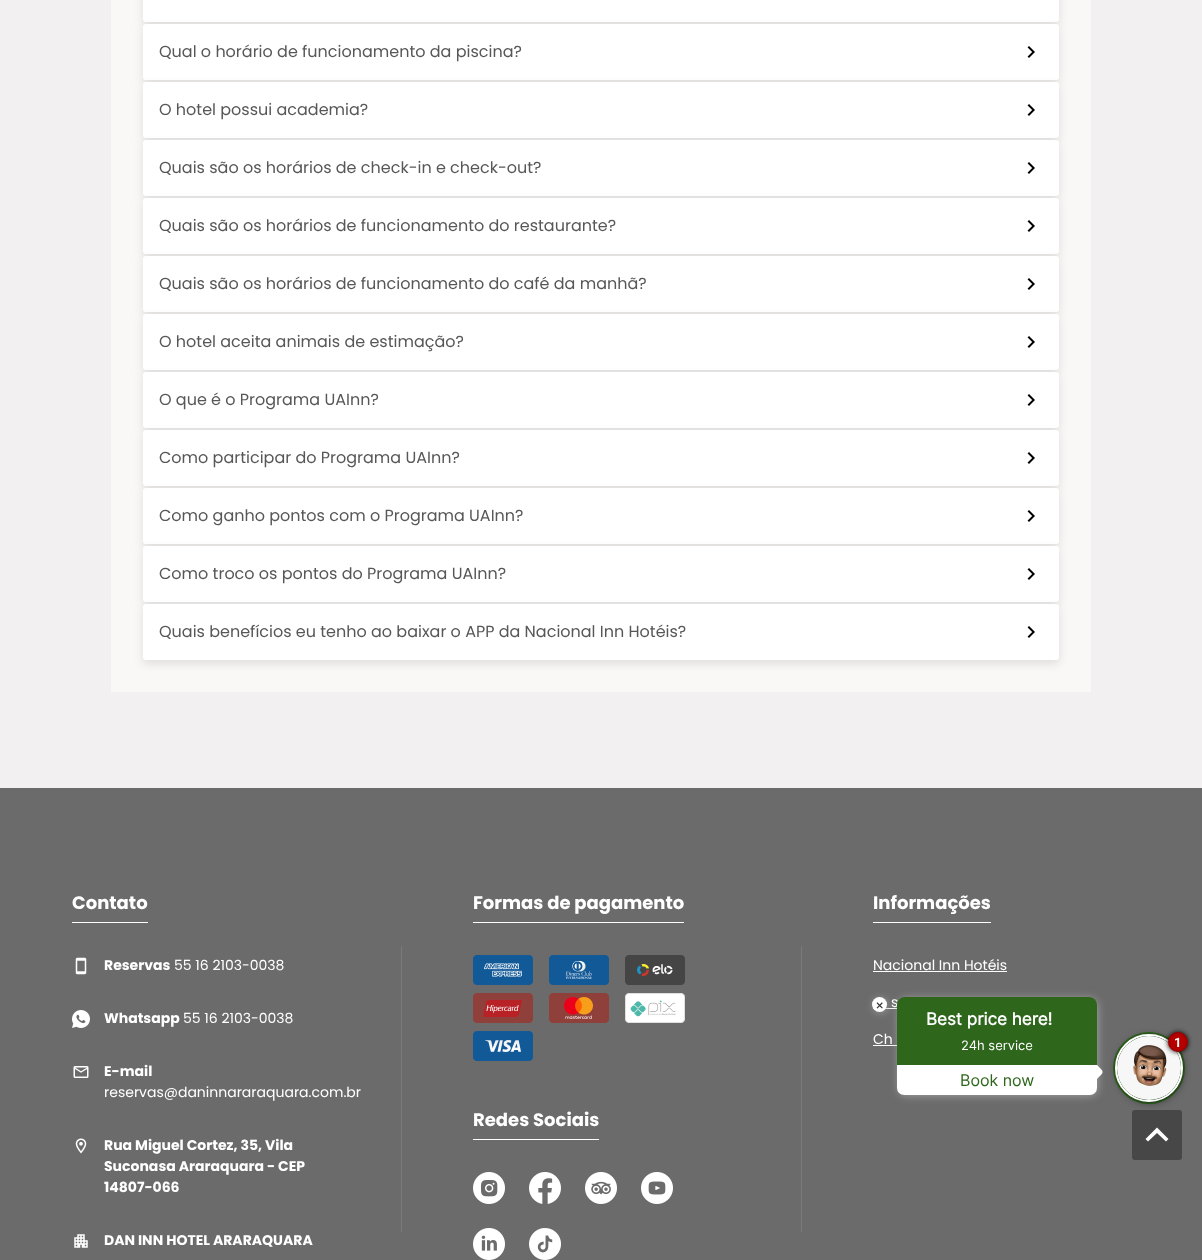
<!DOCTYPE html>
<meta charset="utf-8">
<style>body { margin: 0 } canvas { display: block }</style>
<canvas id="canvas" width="1202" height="1260"></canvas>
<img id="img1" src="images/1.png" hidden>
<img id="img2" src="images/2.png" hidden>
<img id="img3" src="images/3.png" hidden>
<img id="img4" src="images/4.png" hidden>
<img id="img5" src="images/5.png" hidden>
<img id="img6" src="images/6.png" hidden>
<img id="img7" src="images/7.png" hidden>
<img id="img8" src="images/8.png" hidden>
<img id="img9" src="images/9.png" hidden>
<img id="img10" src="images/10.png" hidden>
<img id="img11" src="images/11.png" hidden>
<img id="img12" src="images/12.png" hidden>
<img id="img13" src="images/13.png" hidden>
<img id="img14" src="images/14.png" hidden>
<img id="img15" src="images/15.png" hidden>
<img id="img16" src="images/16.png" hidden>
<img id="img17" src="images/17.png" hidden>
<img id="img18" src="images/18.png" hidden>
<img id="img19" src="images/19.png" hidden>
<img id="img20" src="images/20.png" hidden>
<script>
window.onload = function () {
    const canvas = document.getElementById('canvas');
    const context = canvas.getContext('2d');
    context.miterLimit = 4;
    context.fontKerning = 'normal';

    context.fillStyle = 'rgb(242, 240, 240)';
    context.fillRect(0, 0, 1202, 1260);
    context.fillStyle = 'rgb(249, 248, 247)';
    context.fillRect(111, 0, 980, 692);
    context.fillStyle = 'rgba(0, 0, 0, 0.1)';
    context.filter = 'blur(5px)';
    context.beginPath();
    context.roundRect(143, -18, 916, 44, 3);
    context.fill();
    context.filter = 'none';
    context.fillStyle = 'rgb(255, 255, 255)';
    context.beginPath();
    context.roundRect(143, -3, 916, 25, 3);
    context.fill();
    context.fillStyle = 'rgba(0, 0, 0, 0.1)';
    context.filter = 'blur(5px)';
    context.beginPath();
    context.roundRect(143, 28, 916, 56, 3);
    context.fill();
    context.filter = 'none';
    context.fillStyle = 'rgb(255, 255, 255)';
    context.beginPath();
    context.roundRect(143, 24, 916, 56, 3);
    context.fill();
    context.drawImage(document.getElementById('img1'), 1027, 46, 8, 12);
    context.fillStyle = 'rgba(0, 0, 0, 0.1)';
    context.filter = 'blur(5px)';
    context.beginPath();
    context.roundRect(143, 86, 916, 56, 3);
    context.fill();
    context.filter = 'none';
    context.fillStyle = 'rgb(255, 255, 255)';
    context.beginPath();
    context.roundRect(143, 82, 916, 56, 3);
    context.fill();
    context.drawImage(document.getElementById('img1'), 1027, 104, 8, 12);
    context.fillStyle = 'rgba(0, 0, 0, 0.1)';
    context.filter = 'blur(5px)';
    context.beginPath();
    context.roundRect(143, 144, 916, 56, 3);
    context.fill();
    context.filter = 'none';
    context.fillStyle = 'rgb(255, 255, 255)';
    context.beginPath();
    context.roundRect(143, 140, 916, 56, 3);
    context.fill();
    context.drawImage(document.getElementById('img1'), 1027, 162, 8, 12);
    context.fillStyle = 'rgba(0, 0, 0, 0.1)';
    context.filter = 'blur(5px)';
    context.beginPath();
    context.roundRect(143, 202, 916, 56, 3);
    context.fill();
    context.filter = 'none';
    context.fillStyle = 'rgb(255, 255, 255)';
    context.beginPath();
    context.roundRect(143, 198, 916, 56, 3);
    context.fill();
    context.drawImage(document.getElementById('img1'), 1027, 220, 8, 12);
    context.fillStyle = 'rgba(0, 0, 0, 0.1)';
    context.filter = 'blur(5px)';
    context.beginPath();
    context.roundRect(143, 260, 916, 56, 3);
    context.fill();
    context.filter = 'none';
    context.fillStyle = 'rgb(255, 255, 255)';
    context.beginPath();
    context.roundRect(143, 256, 916, 56, 3);
    context.fill();
    context.drawImage(document.getElementById('img1'), 1027, 278, 8, 12);
    context.fillStyle = 'rgba(0, 0, 0, 0.1)';
    context.filter = 'blur(5px)';
    context.beginPath();
    context.roundRect(143, 318, 916, 56, 3);
    context.fill();
    context.filter = 'none';
    context.fillStyle = 'rgb(255, 255, 255)';
    context.beginPath();
    context.roundRect(143, 314, 916, 56, 3);
    context.fill();
    context.drawImage(document.getElementById('img1'), 1027, 336, 8, 12);
    context.fillStyle = 'rgba(0, 0, 0, 0.1)';
    context.filter = 'blur(5px)';
    context.beginPath();
    context.roundRect(143, 376, 916, 56, 3);
    context.fill();
    context.filter = 'none';
    context.fillStyle = 'rgb(255, 255, 255)';
    context.beginPath();
    context.roundRect(143, 372, 916, 56, 3);
    context.fill();
    context.drawImage(document.getElementById('img1'), 1027, 394, 8, 12);
    context.fillStyle = 'rgba(0, 0, 0, 0.1)';
    context.filter = 'blur(5px)';
    context.beginPath();
    context.roundRect(143, 434, 916, 56, 3);
    context.fill();
    context.filter = 'none';
    context.fillStyle = 'rgb(255, 255, 255)';
    context.beginPath();
    context.roundRect(143, 430, 916, 56, 3);
    context.fill();
    context.drawImage(document.getElementById('img1'), 1027, 452, 8, 12);
    context.fillStyle = 'rgba(0, 0, 0, 0.1)';
    context.filter = 'blur(5px)';
    context.beginPath();
    context.roundRect(143, 492, 916, 56, 3);
    context.fill();
    context.filter = 'none';
    context.fillStyle = 'rgb(255, 255, 255)';
    context.beginPath();
    context.roundRect(143, 488, 916, 56, 3);
    context.fill();
    context.drawImage(document.getElementById('img1'), 1027, 510, 8, 12);
    context.fillStyle = 'rgba(0, 0, 0, 0.1)';
    context.filter = 'blur(5px)';
    context.beginPath();
    context.roundRect(143, 550, 916, 56, 3);
    context.fill();
    context.filter = 'none';
    context.fillStyle = 'rgb(255, 255, 255)';
    context.beginPath();
    context.roundRect(143, 546, 916, 56, 3);
    context.fill();
    context.drawImage(document.getElementById('img1'), 1027, 568, 8, 12);
    context.fillStyle = 'rgba(0, 0, 0, 0.1)';
    context.filter = 'blur(5px)';
    context.beginPath();
    context.roundRect(143, 608, 916, 56, 3);
    context.fill();
    context.filter = 'none';
    context.fillStyle = 'rgb(255, 255, 255)';
    context.beginPath();
    context.roundRect(143, 604, 916, 56, 3);
    context.fill();
    context.drawImage(document.getElementById('img1'), 1027, 626, 8, 12);
    context.fillStyle = 'rgb(107, 107, 107)';
    context.fillRect(0, 788, 1202, 472);
    context.fillStyle = 'rgb(255, 255, 255)';
    context.fillRect(72, 922, 76, 1);
    context.drawImage(document.getElementById('img2'), 75, 957, 12, 18);
    context.drawImage(document.getElementById('img3'), 72, 1010, 18, 18);
    context.drawImage(document.getElementById('img4'), 73, 1066, 16, 12);
    context.drawImage(document.getElementById('img5'), 75, 1138, 12, 16);
    context.drawImage(document.getElementById('img6'), 74, 1234, 14, 14);
    context.fillRect(473, 922, 211, 1);
    context.drawImage(document.getElementById('img7'), 473, 955, 60, 30);
    context.drawImage(document.getElementById('img8'), 549, 955, 60, 30);
    context.drawImage(document.getElementById('img9'), 625, 955, 60, 30);
    context.drawImage(document.getElementById('img10'), 473, 993, 60, 30);
    context.drawImage(document.getElementById('img11'), 549, 993, 60, 30);
    context.drawImage(document.getElementById('img12'), 625, 993, 60, 30);
    context.drawImage(document.getElementById('img13'), 473, 1031, 60, 30);
    context.fillStyle = 'rgb(122, 122, 122)';
    context.fillRect(401, 946, 1, 286);
    context.fillStyle = 'rgb(255, 255, 255)';
    context.fillRect(473, 1139, 126, 1);
    context.drawImage(document.getElementById('img14'), 473, 1172, 32, 32);
    context.drawImage(document.getElementById('img15'), 529, 1172, 32, 32);
    context.drawImage(document.getElementById('img16'), 585, 1172, 32, 32);
    context.drawImage(document.getElementById('img17'), 641, 1172, 32, 32);
    context.drawImage(document.getElementById('img18'), 473, 1228, 32, 32);
    context.drawImage(document.getElementById('img19'), 529, 1228, 32, 32);
    context.fillRect(873, 922, 118, 1);
    context.fillStyle = 'rgb(122, 122, 122)';
    context.fillRect(801, 946, 1, 286);
    context.fillStyle = 'rgb(255, 255, 255)';
    context.fillRect(873, 971, 134, 1);
    context.fillRect(873, 1008, 24, 1);
    context.fillRect(873, 1045, 24, 1);
    context.fillStyle = 'rgb(71, 71, 71)';
    context.beginPath();
    context.roundRect(1132, 1110, 50, 50, 3);
    context.fill();
    context.fillStyle = 'rgb(255, 255, 255)';
    context.beginPath();
    context.moveTo(1157, 1127.5);
    context.lineTo(1145.5, 1139);
    context.lineTo(1148, 1141.5);
    context.lineTo(1157, 1133);
    context.lineTo(1166, 1141.5);
    context.lineTo(1168.5, 1139);
    context.closePath();
    context.fill();
    context.beginPath();
    context.arc(1149, 1068, 35, 0, 2 * Math.PI);
    context.strokeStyle = 'rgb(46, 102, 28)';
    context.lineWidth = 2;
    context.stroke();
    context.fillStyle = 'rgb(0, 0, 0)';
    context.filter = 'blur(5px)';
    context.beginPath();
    context.roundRect(1119, 1038, 62, 62, 31);
    context.fill();
    context.filter = 'none';
    context.beginPath();
    context.arc(1149, 1068, 33, 0, 2 * Math.PI);
    context.strokeStyle = 'rgb(255, 255, 255)';
    context.stroke();
    context.fillStyle = 'rgb(170, 170, 170)';
    context.filter = 'blur(5px)';
    context.beginPath();
    context.roundRect(899, 999, 198, 96, 7);
    context.fill();
    context.filter = 'none';
    context.fillStyle = 'rgb(46, 102, 28)';
    context.beginPath();
    context.arc(1149, 1068, 32, 0, 2 * Math.PI);
    context.fill();
    context.drawImage(document.getElementById('img20'), 1117, 1036, 64, 64);
    context.fillStyle = 'rgb(0, 0, 0)';
    context.filter = 'blur(2.5px)';
    context.beginPath();
    context.roundRect(1168, 1032, 20, 20, 10);
    context.fill();
    context.filter = 'none';
    context.fillStyle = 'rgb(182, 0, 0)';
    context.beginPath();
    context.arc(1178, 1042, 9, 0, 2 * Math.PI);
    context.fill();
    context.strokeStyle = 'rgb(163, 0, 0)';
    context.stroke();
    context.font = '16px Poppins';
    context.fillStyle = 'rgb(87, 87, 87)';
    context.fillText('Qual o horário de funcionamento da piscina?', 159, 57);
    context.fillText('O hotel possui academia?', 159, 115);
    context.fillText('Quais são os horários de check-in e check-out?', 159, 173);
    context.fillText('Quais são os horários de funcionamento do restaurante?', 159, 231);
    context.fillText('Quais são os horários de funcionamento do café da manhã?', 159, 289);
    context.fillText('O hotel aceita animais de estimação?', 159, 347);
    context.fillText('O que é o Programa UAInn?', 159, 405);
    context.fillText('Como participar do Programa UAInn?', 159, 463);
    context.fillText('Como ganho pontos com o Programa UAInn?', 159, 521);
    context.fillText('Como troco os pontos do Programa UAInn?', 159, 579);
    context.fillText('Quais benefícios eu tenho ao baixar o APP da Nacional Inn Hotéis?', 159, 637);
    context.font = 'bold 18px Poppins';
    context.fillStyle = 'rgb(255, 255, 255)';
    context.fillText('Contato', 72, 909);
    context.font = 'bold 14px Poppins';
    context.fillText('Reservas', 104, 970);
    context.font = '14px Poppins';
    context.fillText('55 16 2103-0038', 174, 970);
    context.font = 'bold 14px Poppins';
    context.fillText('Whatsapp', 104, 1023);
    context.font = '14px Poppins';
    context.fillText('55 16 2103-0038', 183, 1023);
    context.font = 'bold 14px Poppins';
    context.fillText('E-mail', 104, 1076);
    context.font = '14px Poppins';
    context.fillText('reservas@daninnararaquara.com.br', 104, 1097);
    context.font = 'bold 14px Poppins';
    context.fillText('Rua Miguel Cortez, 35, Vila', 104, 1150);
    context.fillText('Suconasa Araraquara - CEP', 104, 1171);
    context.fillText('14807-066', 104, 1192);
    context.fillText('DAN INN HOTEL ARARAQUARA', 104, 1245);
    context.font = 'bold 18px Poppins';
    context.fillText('Formas de pagamento', 473, 909);
    context.fillText('Redes Sociais', 473, 1126);
    context.fillText('Informações', 873, 909);
    context.font = '14px Poppins';
    context.fillText('Nacional Inn Hotéis', 873, 970);
    context.fillText('s', 891, 1007);
    context.fillText('Ch', 873, 1044);
    context.fillStyle = 'rgb(46, 102, 28)';
    context.beginPath();
    context.roundRect(897, 997, 200, 98, 8);
    context.fill();
    context.fillStyle = 'rgb(170, 170, 170)';
    context.filter = 'blur(5px)';
    context.beginPath();
    context.roundRect(874, 999, 13, 13, 6.5);
    context.fill();
    context.filter = 'none';
    context.fillStyle = 'rgb(255, 255, 255)';
    context.beginPath();
    context.arc(879.5, 1004.5, 7.5, 0, 2 * Math.PI);
    context.fill();
    context.font = '14px Roboto';
    context.fillStyle = 'rgb(51, 51, 51)';
    context.fillText('×', 876, 1010);
    context.font = 'bold 17px Inter';
    context.fillStyle = 'rgb(255, 255, 255)';
    context.fillText('Best price here!', 926, 1025);
    context.font = '13px Inter';
    context.fillText('24h service', 961, 1050);
    context.beginPath();
    context.roundRect(897, 1065, 200, 30, [0, 0, 7, 7]);
    context.fill();
    context.beginPath();
    context.moveTo(1097, 1065);
    context.bezierCurveTo(1104.5, 1072.5, 1104.5, 1071.5, 1097, 1079);
    context.lineTo(1090, 1072);
    context.closePath();
    context.fill();
    context.font = '16px Inter';
    context.fillStyle = 'rgb(46, 102, 28)';
    context.fillText('Book now', 960, 1086);
    context.font = 'bold 13px Roboto';
    context.fillStyle = 'rgb(255, 255, 255)';
    context.fillText('1', 1174, 1047);
};
</script>
